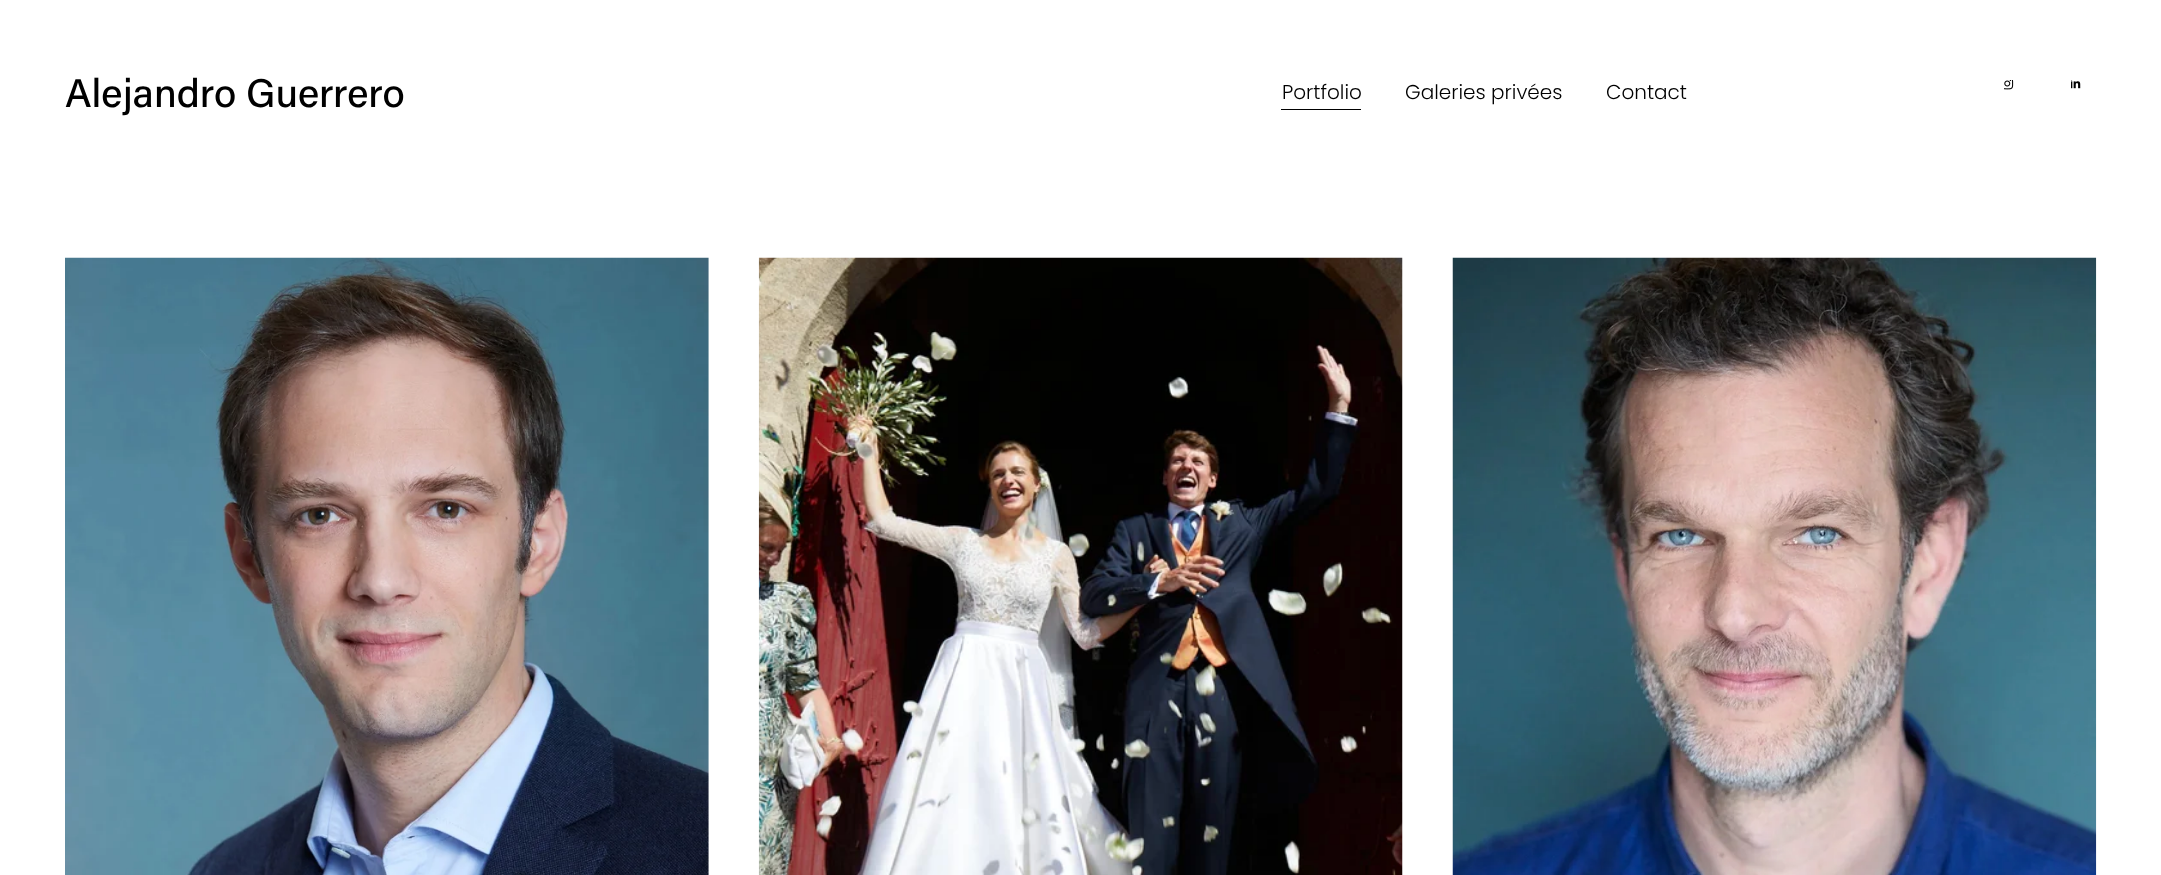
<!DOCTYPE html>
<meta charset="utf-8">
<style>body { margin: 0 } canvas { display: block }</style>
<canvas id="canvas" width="2161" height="875"></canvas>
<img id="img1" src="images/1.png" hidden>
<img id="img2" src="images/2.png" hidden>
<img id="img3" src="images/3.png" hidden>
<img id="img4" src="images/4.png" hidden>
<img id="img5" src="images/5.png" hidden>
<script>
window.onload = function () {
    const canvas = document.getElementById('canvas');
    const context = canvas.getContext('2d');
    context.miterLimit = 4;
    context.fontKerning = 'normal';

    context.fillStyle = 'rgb(255, 255, 255)';
    context.fillRect(0, 0, 2161, 875);
    context.fillStyle = 'rgb(0, 0, 0)';
    context.fillRect(1281, 109, 80, 1);
    context.drawImage(document.getElementById('img1'), 2004, 80, 10, 10);
    context.drawImage(document.getElementById('img2'), 2071, 80, 10, 9);
    context.drawImage(document.getElementById('img3'), 65, 257, 644, 618);
    context.drawImage(document.getElementById('img4'), 758, 257, 645, 618);
    context.drawImage(document.getElementById('img5'), 1452, 257, 645, 618);
    context.font = '500 40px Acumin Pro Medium';
    context.fillText('Alejandro Guerrero', 65, 107);
    context.font = '300 20px Poppins';
    context.fillText('Portfolio', 1282, 99);
    context.fillText('Galeries privées', 1405, 99);
    context.fillText('Contact', 1606, 99);
};
</script>
